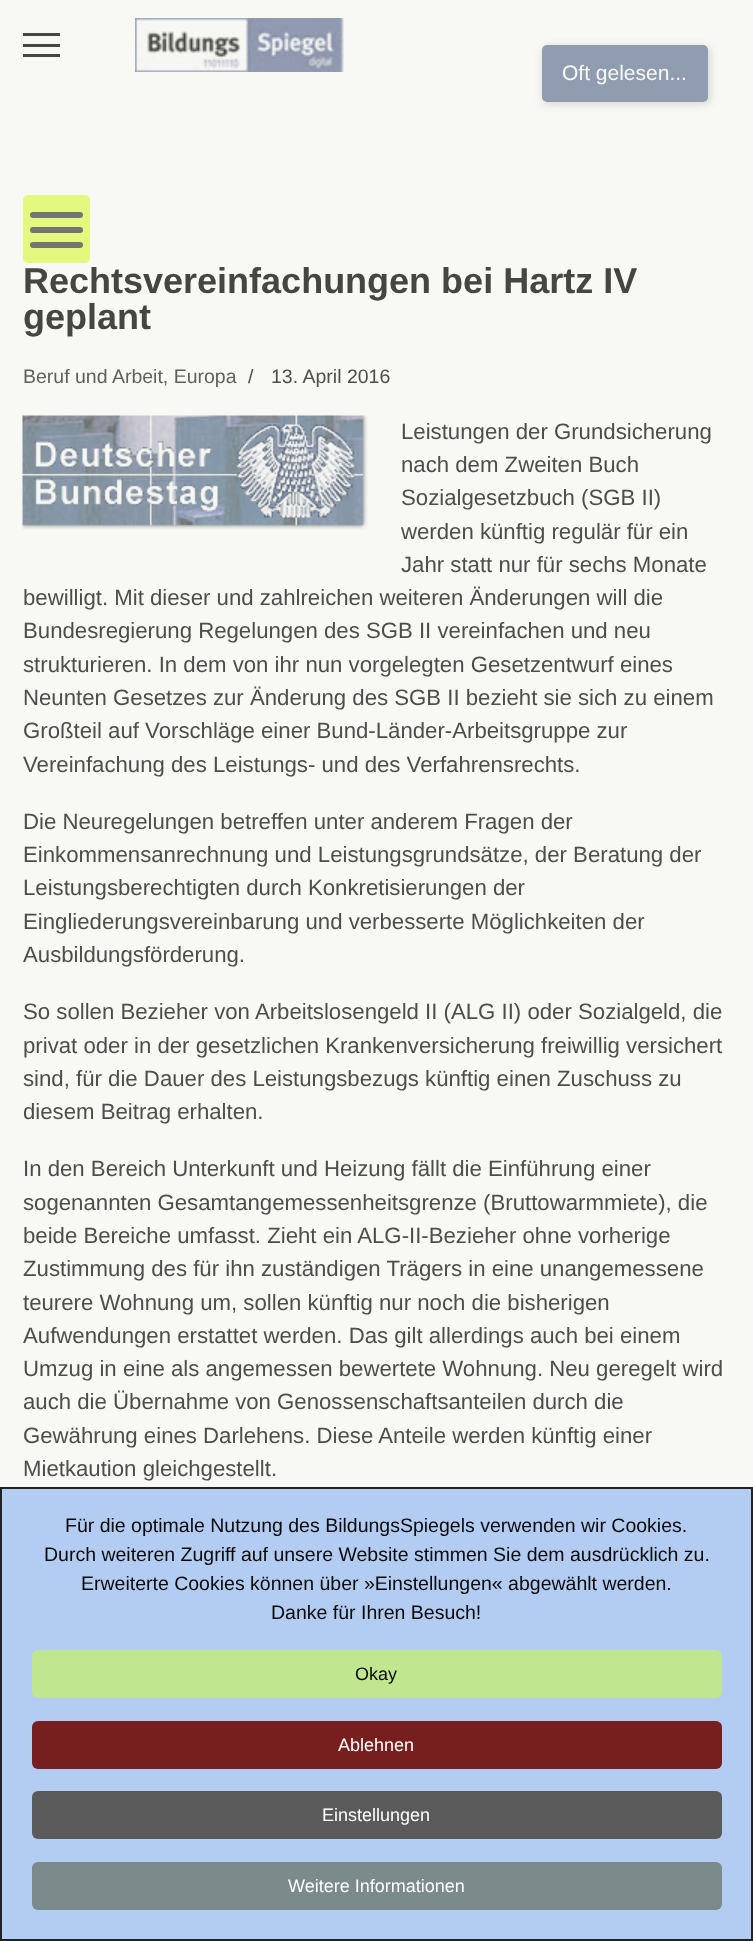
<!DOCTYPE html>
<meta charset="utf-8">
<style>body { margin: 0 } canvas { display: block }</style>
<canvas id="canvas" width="753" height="1941"></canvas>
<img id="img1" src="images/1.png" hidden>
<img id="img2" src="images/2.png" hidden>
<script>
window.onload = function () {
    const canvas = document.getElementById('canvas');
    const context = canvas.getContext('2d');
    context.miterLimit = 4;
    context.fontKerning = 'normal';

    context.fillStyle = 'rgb(248, 248, 245)';
    context.fillRect(0, 0, 753, 1941);
    context.fillStyle = 'rgba(69, 69, 66, 0.2)';
    context.filter = 'blur(4px)';
    context.beginPath();
    context.roundRect(543, 47, 167, 57, 5);
    context.fill();
    context.filter = 'none';
    context.fillStyle = 'rgb(144, 157, 177)';
    context.beginPath();
    context.roundRect(542, 45, 166, 57, 5);
    context.fill();
    context.fillStyle = 'rgb(69, 69, 66)';
    context.fillRect(23, 33, 37, 3);
    context.fillRect(23, 44, 37, 3);
    context.fillRect(23, 54, 37, 3);
    context.drawImage(document.getElementById('img1'), 135, 18, 209, 54);
    context.fillStyle = 'rgb(226, 248, 127)';
    context.beginPath();
    context.roundRect(23, 195, 67, 68, 5);
    context.fill();
    context.fillStyle = 'rgb(116, 116, 113)';
    context.beginPath();
    context.roundRect(30, 227, 53, 6, 3);
    context.fill();
    context.beginPath();
    context.roundRect(30, 212, 53, 6, 3);
    context.fill();
    context.beginPath();
    context.roundRect(30, 242, 53, 6, 3);
    context.fill();
    context.drawImage(document.getElementById('img2'), 22, 415, 346, 115);
    context.fillStyle = 'rgb(179, 204, 242)';
    context.beginPath();
    context.rect(1, 1488, 751, 452);
    context.fill();
    context.strokeStyle = 'rgb(32, 34, 38)';
    context.lineWidth = 2;
    context.stroke();
    context.fillStyle = 'rgb(192, 230, 143)';
    context.beginPath();
    context.roundRect(32, 1650, 690, 48, 6);
    context.fill();
    context.fillStyle = 'rgb(119, 31, 31)';
    context.beginPath();
    context.roundRect(32, 1721, 690, 48, 6);
    context.fill();
    context.fillStyle = 'rgb(90, 90, 90)';
    context.beginPath();
    context.roundRect(32, 1791, 690, 48, 6);
    context.fill();
    context.fillStyle = 'rgb(123, 138, 139)';
    context.beginPath();
    context.roundRect(32, 1862, 690, 48, 6);
    context.fill();
    context.font = '21px Liberation Sans';
    context.fillStyle = 'rgb(248, 248, 245)';
    context.fillText('Oft gelesen...', 562, 80);
    context.font = 'bold 36px Liberation Sans';
    context.fillStyle = 'rgb(69, 69, 66)';
    context.fillText('Rechtsvereinfachungen bei Hartz IV', 23, 293);
    context.fillText('geplant', 23, 329);
    context.font = '19.5px Liberation Sans';
    context.fillStyle = 'rgb(95, 95, 92)';
    context.fillText('Beruf und Arbeit, Europa', 23, 383);
    context.fillStyle = 'rgb(78, 77, 75)';
    context.fillText('/', 248, 383);
    context.fillText('13. April 2016', 271, 383);
    context.font = '22.2px Liberation Sans';
    context.fillText('Leistungen der Grundsicherung', 401, 439);
    context.fillText('nach dem Zweiten Buch', 401, 472);
    context.fillText('Sozialgesetzbuch (SGB II)', 401, 505);
    context.fillText('werden künftig regulär für ein', 401, 539);
    context.fillText('Jahr statt nur für sechs Monate', 401, 572);
    context.fillText('bewilligt. Mit dieser und zahlreichen weiteren Änderungen will die', 23, 605);
    context.fillText('Bundesregierung Regelungen des SGB II vereinfachen und neu', 23, 638);
    context.fillText('strukturieren. In dem von ihr nun vorgelegten Gesetzentwurf eines', 23, 672);
    context.fillText('Neunten Gesetzes zur Änderung des SGB II bezieht sie sich zu einem', 23, 705);
    context.fillText('Großteil auf Vorschläge einer Bund-Länder-Arbeitsgruppe zur', 23, 738);
    context.fillText('Vereinfachung des Leistungs- und des Verfahrensrechts.', 23, 772);
    context.fillText('Die Neuregelungen betreffen unter anderem Fragen der', 23, 829);
    context.fillText('Einkommensanrechnung und Leistungsgrundsätze, der Beratung der', 23, 862);
    context.fillText('Leistungsberechtigten durch Konkretisierungen der', 23, 895);
    context.fillText('Eingliederungsvereinbarung und verbesserte Möglichkeiten der', 23, 929);
    context.fillText('Ausbildungsförderung.', 23, 962);
    context.fillText('So sollen Bezieher von Arbeitslosengeld II (ALG II) oder Sozialgeld, die', 23, 1019);
    context.fillText('privat oder in der gesetzlichen Krankenversicherung freiwillig versichert', 23, 1053);
    context.fillText('sind, für die Dauer des Leistungsbezugs künftig einen Zuschuss zu', 23, 1086);
    context.fillText('diesem Beitrag erhalten.', 23, 1119);
    context.fillText('In den Bereich Unterkunft und Heizung fällt die Einführung einer', 23, 1176);
    context.fillText('sogenannten Gesamtangemessenheitsgrenze (Bruttowarmmiete), die', 23, 1210);
    context.fillText('beide Bereiche umfasst. Zieht ein ALG-II-Bezieher ohne vorherige', 23, 1243);
    context.fillText('Zustimmung des für ihn zuständigen Trägers in eine unangemessene', 23, 1276);
    context.fillText('teurere Wohnung um, sollen künftig nur noch die bisherigen', 23, 1310);
    context.fillText('Aufwendungen erstattet werden. Das gilt allerdings auch bei einem', 23, 1343);
    context.fillText('Umzug in eine als angemessen bewertete Wohnung. Neu geregelt wird', 23, 1376);
    context.fillText('auch die Übernahme von Genossenschaftsanteilen durch die', 23, 1409);
    context.fillText('Gewährung eines Darlehens. Diese Anteile werden künftig einer', 23, 1443);
    context.fillText('Mietkaution gleichgestellt.', 23, 1476);
    context.font = '19.5px Liberation Sans';
    context.fillStyle = 'rgb(10, 10, 10)';
    context.fillText('Für die optimale Nutzung des BildungsSpiegels verwenden wir Cookies.', 65, 1532);
    context.fillText('Durch weiteren Zugriff auf unsere Website stimmen Sie dem ausdrücklich zu.', 44, 1561);
    context.fillText('Erweiterte Cookies können über »Einstellungen« abgewählt werden.', 81, 1590);
    context.fillText('Danke für Ihren Besuch!', 271, 1619);
    context.font = '18px Liberation Sans';
    context.fillText('Okay', 355, 1680);
    context.fillStyle = 'rgb(255, 255, 255)';
    context.fillText('Ablehnen', 338, 1751);
    context.fillText('Einstellungen', 322, 1821);
    context.fillText('Weitere Informationen', 288, 1892);
};
</script>
